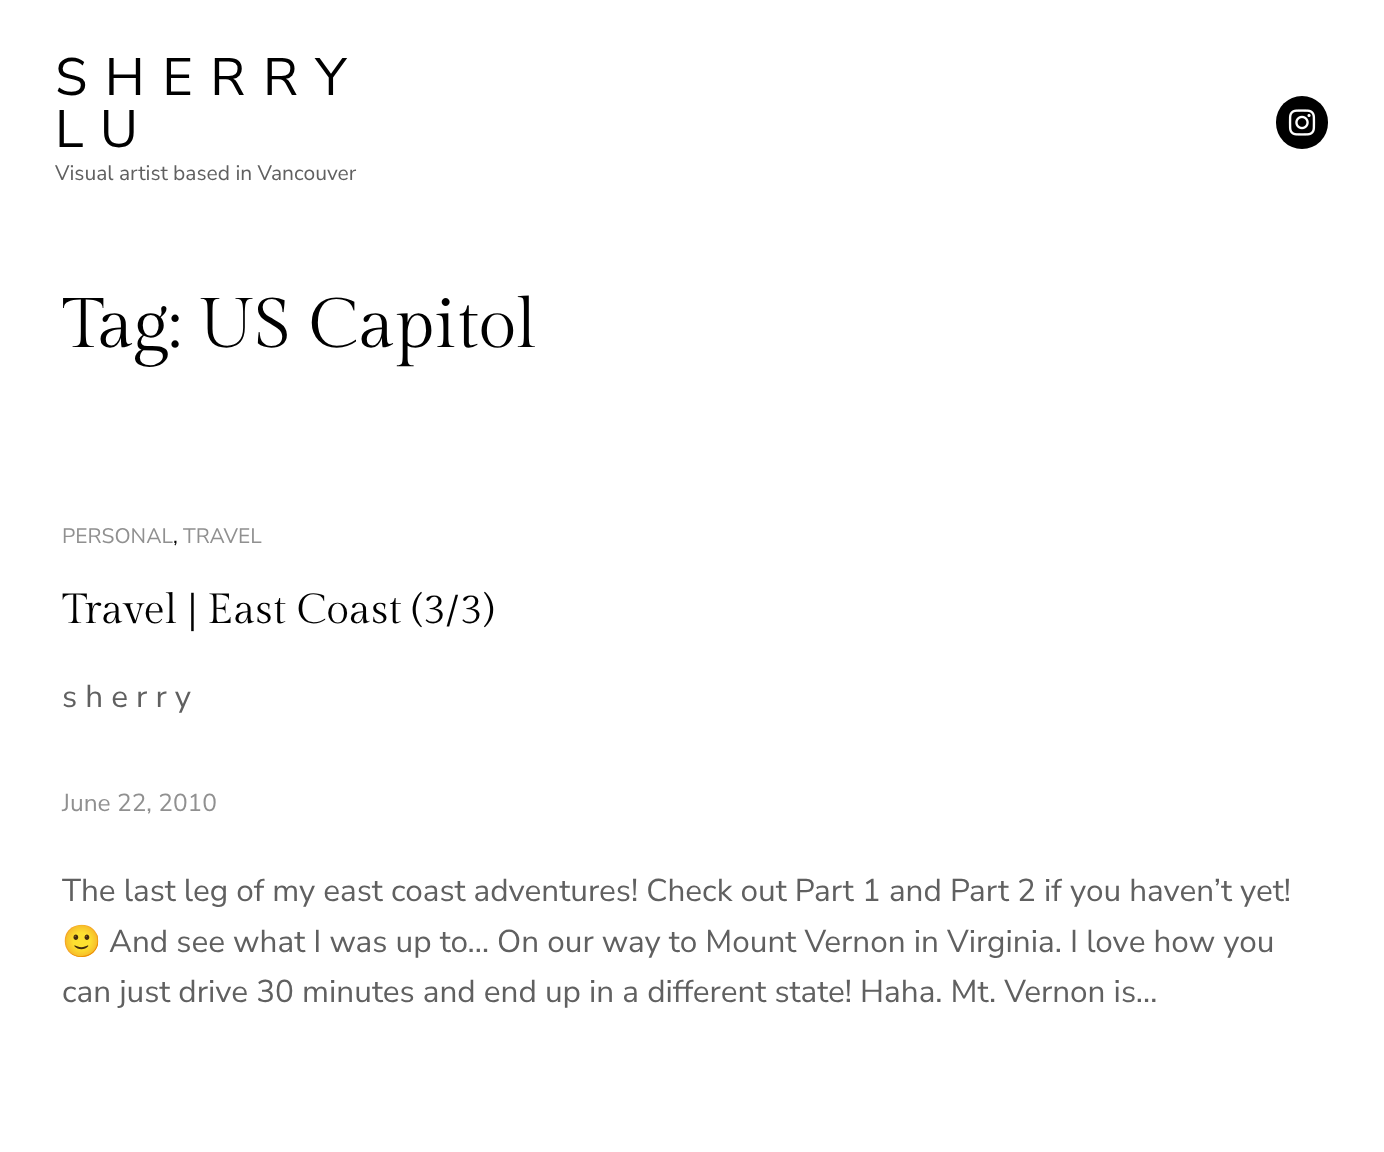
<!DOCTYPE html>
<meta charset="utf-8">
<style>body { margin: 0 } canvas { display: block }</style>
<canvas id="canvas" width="1384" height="1152"></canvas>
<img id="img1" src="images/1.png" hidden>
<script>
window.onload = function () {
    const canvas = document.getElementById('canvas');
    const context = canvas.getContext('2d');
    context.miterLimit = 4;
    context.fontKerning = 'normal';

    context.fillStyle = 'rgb(255, 255, 255)';
    context.fillRect(0, 0, 1384, 1152);
    context.fillStyle = 'rgb(0, 0, 0)';
    context.beginPath();
    context.roundRect(1276, 96, 52, 53, 26);
    context.fill();
    context.drawImage(document.getElementById('img1'), 1288, 109, 28, 27);
    context.letterSpacing = '17.5px';
    context.font = '52.5px Nunito Sans';
    context.fillText('SHERRY', 55, 95);
    context.fillText('LU', 55, 147);
    context.letterSpacing = '0px';
    context.font = '21px Nunito Sans';
    context.fillStyle = 'rgb(96, 96, 96)';
    context.fillText('Visual artist based in Vancouver', 55, 180);
    context.font = '70px Gilda Display';
    context.fillStyle = 'rgb(0, 0, 0)';
    context.fillText('Tag: US Capitol', 62, 347);
    context.font = '21px Nunito Sans';
    context.fillStyle = 'rgb(144, 144, 144)';
    context.fillText('PERSONAL', 62, 543);
    context.fillStyle = 'rgb(0, 0, 0)';
    context.fillText(',', 173, 543);
    context.fillStyle = 'rgb(144, 144, 144)';
    context.fillText('TRAVEL', 183, 543);
    context.font = '42px Gilda Display';
    context.fillStyle = 'rgb(0, 0, 0)';
    context.fillText('Travel | East Coast (3/3)', 62, 623);
    context.font = '31.5px Nunito Sans';
    context.fillStyle = 'rgb(96, 96, 96)';
    context.fillText('s h e r r y', 62, 707);
    context.font = '24.5px Nunito Sans';
    context.fillStyle = 'rgb(144, 144, 144)';
    context.fillText('June 22, 2010', 62, 811);
    context.font = '31.5px Nunito Sans';
    context.fillStyle = 'rgb(96, 96, 96)';
    context.fillText('The last leg of my east coast adventures! Check out Part 1 and Part 2 if you haven’t yet!', 62, 901);
    context.font = '31.5px Noto Color Emoji';
    context.fillText('🙂', 62, 952);
    context.font = '31.5px Nunito Sans';
    context.fillText('And see what I was up to… On our way to Mount Vernon in Virginia. I love how you', 109, 952);
    context.fillText('can just drive 30 minutes and end up in a different state! Haha. Mt. Vernon is…', 62, 1002);
};
</script>
